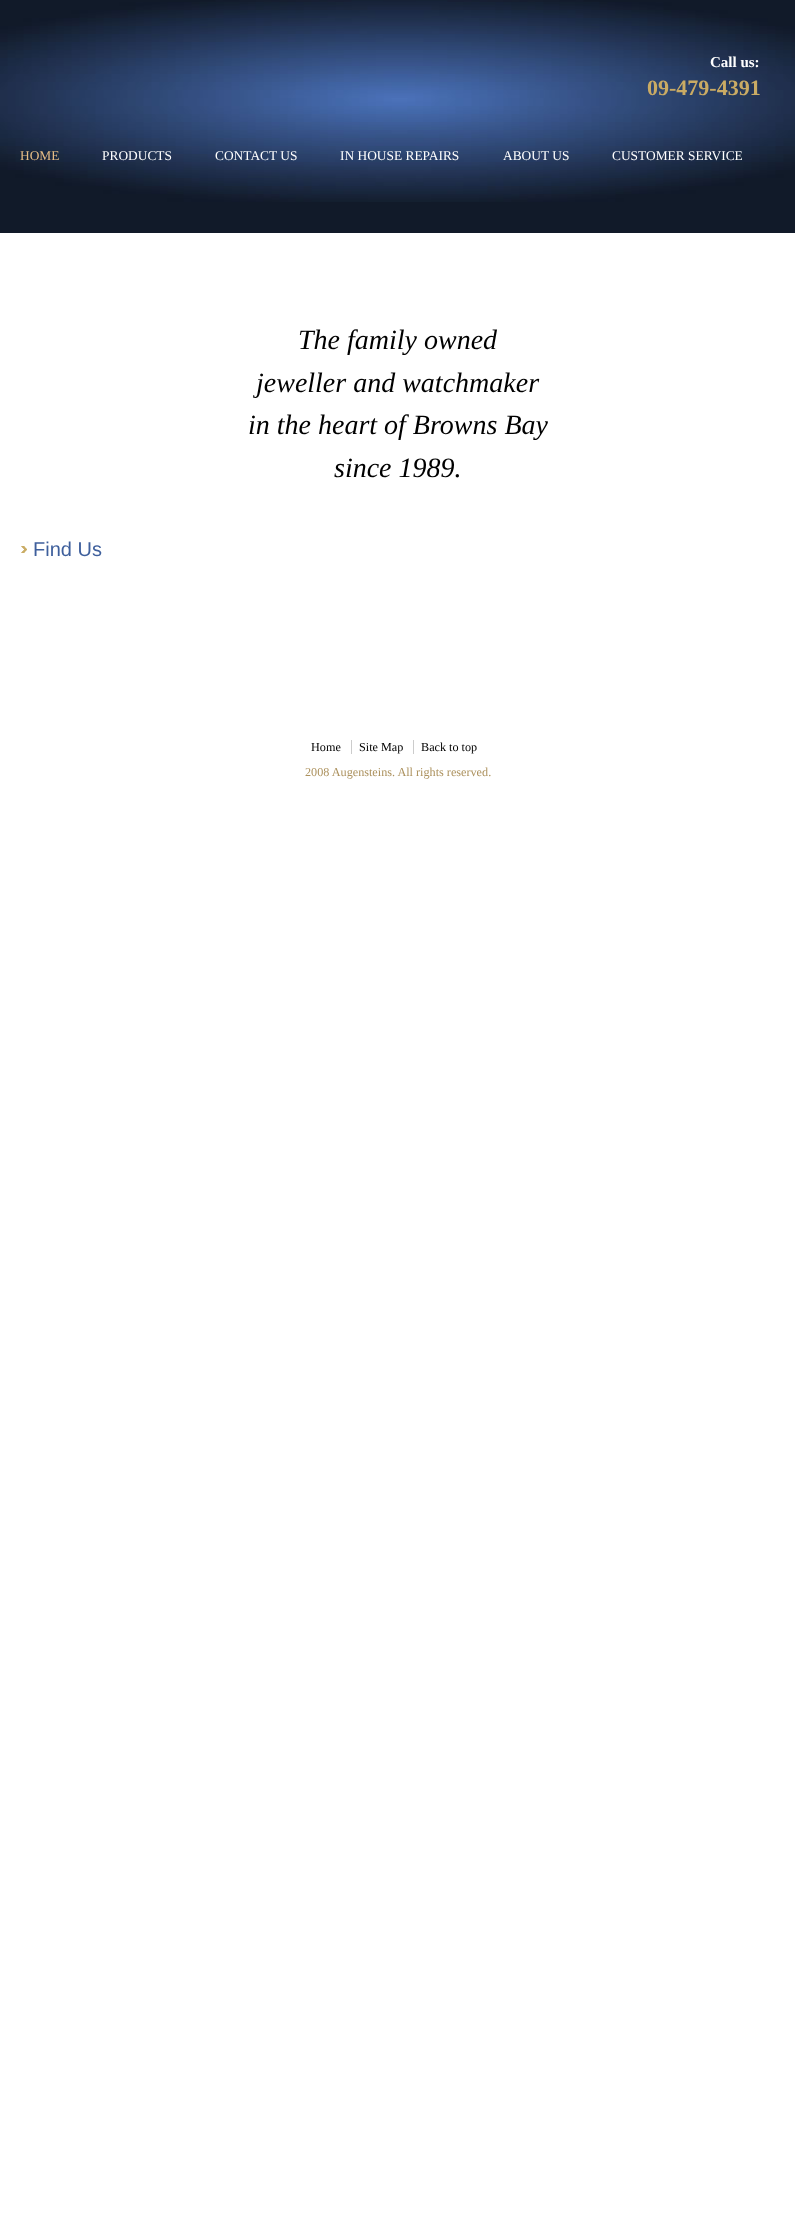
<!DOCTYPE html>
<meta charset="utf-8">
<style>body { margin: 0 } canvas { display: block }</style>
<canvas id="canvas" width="795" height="2216"></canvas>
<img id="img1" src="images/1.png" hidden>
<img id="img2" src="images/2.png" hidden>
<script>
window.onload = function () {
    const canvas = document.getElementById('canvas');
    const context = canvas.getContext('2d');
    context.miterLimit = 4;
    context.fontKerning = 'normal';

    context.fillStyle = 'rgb(255, 255, 255)';
    context.fillRect(0, 0, 795, 2216);
    context.fillStyle = 'rgb(17, 26, 41)';
    context.fillRect(0, 202, 795, 31);
    context.drawImage(document.getElementById('img1'), 0, 0, 795, 202);
    context.drawImage(document.getElementById('img2'), 21, 546, 6, 7);
    context.fillStyle = 'rgb(204, 204, 204)';
    context.fillRect(351, 740, 1, 14);
    context.fillRect(413, 740, 1, 14);
    context.font = 'bold 15px Liberation Serif';
    context.fillStyle = 'rgb(255, 255, 255)';
    context.fillText('Call us:', 710, 67);
    context.font = 'bold 22px Liberation Serif';
    context.fillStyle = 'rgb(202, 171, 100)';
    context.fillText('09-479-4391', 647, 95);
    context.font = '13.4px Liberation Serif';
    context.fillStyle = 'rgb(230, 189, 134)';
    context.fillText('HOME', 20, 160);
    context.fillStyle = 'rgb(255, 255, 255)';
    context.fillText('PRODUCTS', 102, 160);
    context.fillText('CONTACT US', 215, 160);
    context.fillText('IN HOUSE REPAIRS', 340, 160);
    context.fillText('ABOUT US', 503, 160);
    context.fillText('CUSTOMER SERVICE', 612, 160);
    context.font = 'italic 28px Liberation Serif';
    context.fillStyle = 'rgb(0, 0, 0)';
    context.fillText('The family owned', 298, 349);
    context.fillText('jeweller and watchmaker', 256, 392);
    context.fillText('in the heart of Browns Bay', 248, 434);
    context.fillText('since 1989.', 334, 477);
    context.font = '20px Liberation Sans';
    context.fillStyle = 'rgb(62, 95, 156)';
    context.fillText('Find Us', 33, 556);
    context.font = '12.2px Liberation Serif';
    context.fillStyle = 'rgb(0, 0, 0)';
    context.fillText('Home', 311, 751);
    context.fillText('Site Map', 359, 751);
    context.fillText('Back to top', 421, 751);
    context.fillStyle = 'rgb(172, 145, 93)';
    context.fillText('2008 Augensteins. All rights reserved.', 305, 776);
};
</script>
